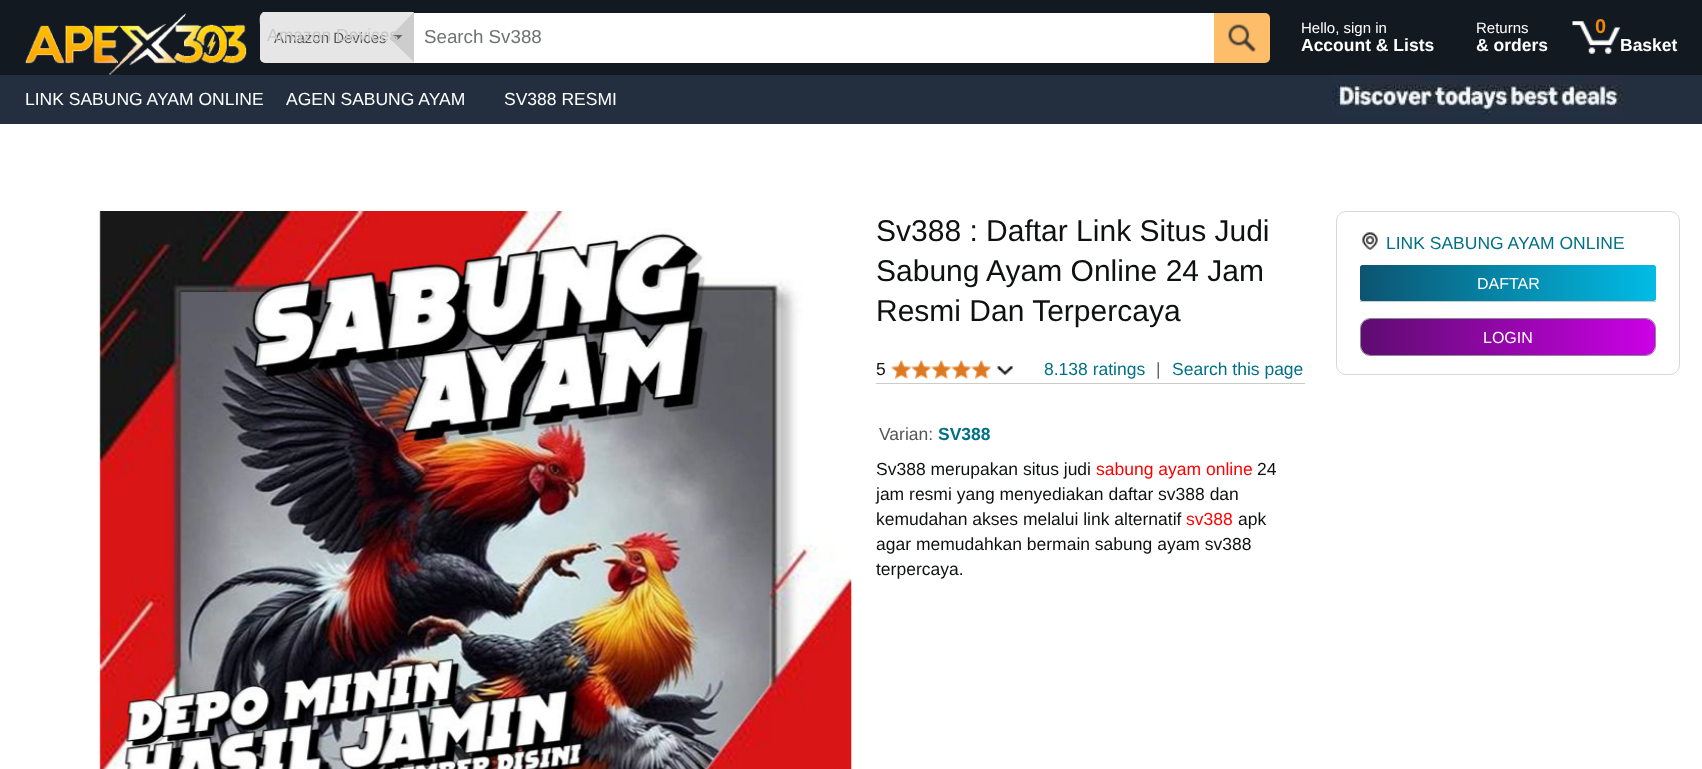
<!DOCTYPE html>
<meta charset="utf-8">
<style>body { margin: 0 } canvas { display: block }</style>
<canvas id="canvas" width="1702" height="769"></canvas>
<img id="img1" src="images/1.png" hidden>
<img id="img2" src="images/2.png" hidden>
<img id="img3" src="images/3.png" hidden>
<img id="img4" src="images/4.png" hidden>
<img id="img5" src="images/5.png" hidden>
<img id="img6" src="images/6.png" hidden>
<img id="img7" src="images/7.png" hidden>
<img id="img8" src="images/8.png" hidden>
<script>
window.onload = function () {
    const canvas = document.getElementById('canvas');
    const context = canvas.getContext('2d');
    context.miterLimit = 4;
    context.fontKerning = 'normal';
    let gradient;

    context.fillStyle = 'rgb(255, 255, 255)';
    context.fillRect(0, 0, 1702, 769);
    context.fillStyle = 'rgb(19, 25, 33)';
    context.fillRect(0, 0, 1702, 75);
    context.fillStyle = 'rgb(35, 47, 62)';
    context.fillRect(0, 75, 1702, 49);
    context.drawImage(document.getElementById('img1'), 25, 13, 222, 63);
    context.fillStyle = 'rgb(230, 230, 230)';
    context.beginPath();
    context.roundRect(260, 13, 154, 50, [5, 0, 0, 5]);
    context.fill();
    context.beginPath();
    context.moveTo(261, 14);
    context.lineTo(285, 38);
    context.lineTo(389, 38);
    context.lineTo(414, 12);
    context.lineTo(263, 12);
    context.closePath();
    context.fill();
    context.fillStyle = 'rgb(205, 205, 205)';
    context.beginPath();
    context.moveTo(414, 12);
    context.lineTo(389, 38);
    context.lineTo(414, 62);
    context.closePath();
    context.fill();
    context.fillStyle = 'rgb(230, 230, 230)';
    context.beginPath();
    context.moveTo(413, 62);
    context.lineTo(389, 38);
    context.lineTo(285, 38);
    context.lineTo(262, 61);
    context.bezierCurveTo(262, 62, 264, 62, 265, 62);
    context.closePath();
    context.fill();
    context.beginPath();
    context.moveTo(262, 61);
    context.lineTo(285, 38);
    context.lineTo(261, 14);
    context.bezierCurveTo(259, 17, 260, 22, 260, 25);
    context.lineTo(260, 59);
    context.closePath();
    context.fill();
    context.fillStyle = 'rgb(102, 102, 102)';
    context.beginPath();
    context.moveTo(392.5, 35);
    context.lineTo(402.5, 35);
    context.lineTo(397.5, 40);
    context.closePath();
    context.fill();
    context.fillStyle = 'rgb(255, 255, 255)';
    context.fillRect(414, 13, 800, 50);
    context.fillStyle = 'rgb(254, 189, 105)';
    context.beginPath();
    context.roundRect(1214, 13, 56, 50, [0, 5, 5, 0]);
    context.fill();
    context.drawImage(document.getElementById('img2'), 1227, 24, 29, 28);
    context.drawImage(document.getElementById('img3'), 1572, 21, 49, 33);
    context.drawImage(document.getElementById('img4'), 1332, 75, 291, 41);
    context.drawImage(document.getElementById('img5'), 99, 211, 753, 558);
    context.drawImage(document.getElementById('img6'), 891, 360, 100, 19);
    context.drawImage(document.getElementById('img7'), 997, 366, 16, 10);
    context.fillStyle = 'rgb(204, 204, 204)';
    context.fillRect(876, 383, 429, 1);
    context.beginPath();
    context.roundRect(1336.5, 211.5, 343, 163, 9.5);
    context.strokeStyle = 'rgb(213, 217, 217)';
    context.stroke();
    context.drawImage(document.getElementById('img8'), 1362, 232, 16, 18);
    gradient = context.createLinearGradient(1360, 283, 1656, 283);
    gradient.addColorStop(0, 'rgb(12, 84, 112)');
    gradient.addColorStop(1, 'rgb(1, 188, 230)');
    context.fillStyle = gradient;
    context.beginPath();
    context.roundRect(1360, 265, 296, 36, 2.5);
    context.fill();
    context.fillStyle = 'rgb(204, 204, 204)';
    context.fillRect(1360, 301, 296, 1);
    context.beginPath();
    context.roundRect(1360.5, 318.5, 295, 37, 9.5);
    context.strokeStyle = 'rgb(136, 140, 140)';
    context.stroke();
    gradient = context.createLinearGradient(1361, 337, 1655, 337);
    gradient.addColorStop(0, 'rgb(94, 12, 112)');
    gradient.addColorStop(1, 'rgb(203, 1, 230)');
    context.fillStyle = gradient;
    context.beginPath();
    context.roundRect(1361, 319, 294, 36, 9);
    context.fill();
    context.font = '15px Liberation Sans';
    context.fillStyle = 'rgb(85, 85, 85)';
    context.fillText('Amazon Devices', 274, 43);
    context.font = '17.5px Liberation Sans';
    context.fillStyle = 'rgb(200, 200, 200)';
    context.fillText('Amazon Devices', 267, 41);
    context.font = '18.75px Liberation Sans';
    context.fillStyle = 'rgb(111, 115, 115)';
    context.fillText('Search Sv388', 424, 43);
    context.font = '15px Liberation Sans';
    context.fillStyle = 'rgb(255, 255, 255)';
    context.fillText('Hello, sign in', 1301, 33);
    context.font = 'bold 17.5px Liberation Sans';
    context.fillText('Account & Lists', 1301, 51);
    context.font = '15px Liberation Sans';
    context.fillText('Returns', 1476, 33);
    context.font = 'bold 17.5px Liberation Sans';
    context.fillText('& orders', 1476, 51);
    context.font = 'bold 20px Liberation Sans';
    context.fillStyle = 'rgb(240, 136, 4)';
    context.fillText('0', 1595, 33);
    context.font = 'bold 17.5px Liberation Sans';
    context.fillStyle = 'rgb(255, 255, 255)';
    context.fillText('Basket', 1620, 51);
    context.font = '17.5px Liberation Sans';
    context.fillText('LINK SABUNG AYAM ONLINE', 25, 105);
    context.fillText('AGEN SABUNG AYAM', 286, 105);
    context.fillText('SV388 RESMI', 504, 105);
    context.font = '30px Liberation Sans';
    context.fillStyle = 'rgb(15, 17, 17)';
    context.fillText('Sv388 : Daftar Link Situs Judi', 876, 241);
    context.fillText('Sabung Ayam Online 24 Jam', 876, 281);
    context.fillText('Resmi Dan Terpercaya', 876, 321);
    context.font = '17.5px Liberation Sans';
    context.fillText('5', 876, 375);
    context.fillStyle = 'rgb(0, 113, 133)';
    context.fillText('8.138 ratings', 1044, 375);
    context.fillStyle = 'rgb(102, 102, 102)';
    context.fillText('|', 1156, 375);
    context.fillStyle = 'rgb(0, 113, 133)';
    context.fillText('Search this page', 1172, 375);
    context.fillStyle = 'rgb(85, 85, 85)';
    context.fillText('Varian:', 879, 440);
    context.font = 'bold 17.5px Liberation Sans';
    context.fillStyle = 'rgb(0, 113, 133)';
    context.fillText('SV388', 938, 440);
    context.font = '17.5px Liberation Sans';
    context.fillStyle = 'rgb(15, 17, 17)';
    context.fillText('Sv388 merupakan situs judi', 876, 475);
    context.fillStyle = 'rgb(255, 0, 0)';
    context.fillText('sabung ayam online', 1096, 475);
    context.fillStyle = 'rgb(15, 17, 17)';
    context.fillText('24', 1257, 475);
    context.fillText('jam resmi yang menyediakan daftar sv388 dan', 876, 500);
    context.fillText('kemudahan akses melalui link alternatif', 876, 525);
    context.fillStyle = 'rgb(255, 0, 0)';
    context.fillText('sv388', 1186, 525);
    context.fillStyle = 'rgb(15, 17, 17)';
    context.fillText('apk', 1238, 525);
    context.fillText('agar memudahkan bermain sabung ayam sv388', 876, 550);
    context.fillText('terpercaya.', 876, 575);
    context.fillStyle = 'rgb(0, 113, 133)';
    context.fillText('LINK SABUNG AYAM ONLINE', 1386, 249);
    context.font = '16px Liberation Sans';
    context.fillStyle = 'rgb(255, 255, 255)';
    context.fillText('DAFTAR', 1477, 289);
    context.fillText('LOGIN', 1483, 343);
};
</script>
